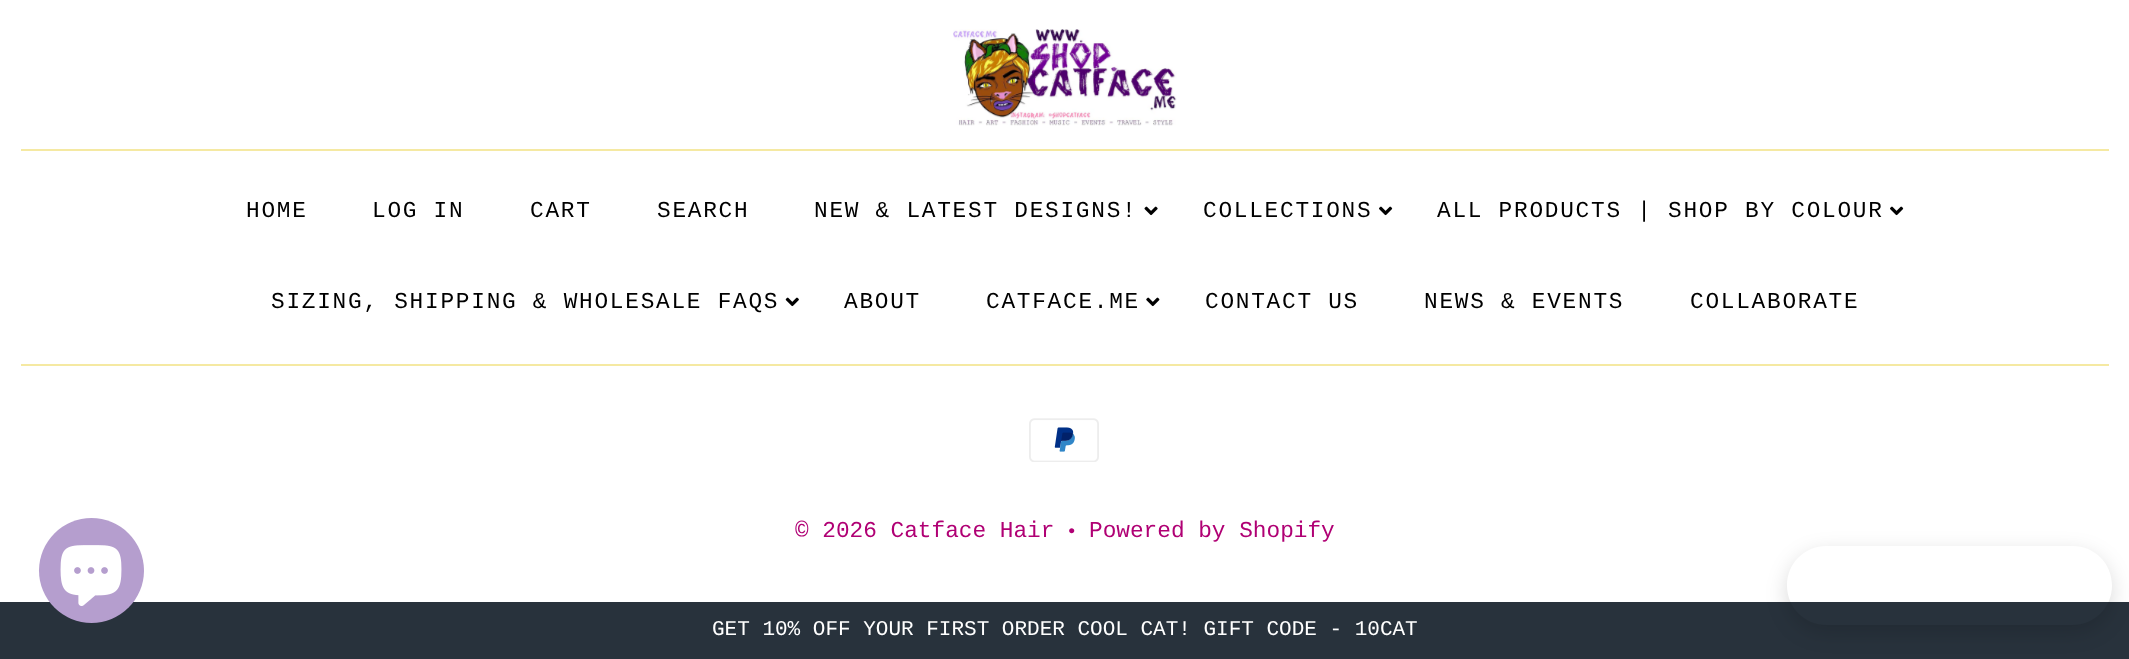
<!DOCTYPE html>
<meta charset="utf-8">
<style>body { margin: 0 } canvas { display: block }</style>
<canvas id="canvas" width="2129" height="659"></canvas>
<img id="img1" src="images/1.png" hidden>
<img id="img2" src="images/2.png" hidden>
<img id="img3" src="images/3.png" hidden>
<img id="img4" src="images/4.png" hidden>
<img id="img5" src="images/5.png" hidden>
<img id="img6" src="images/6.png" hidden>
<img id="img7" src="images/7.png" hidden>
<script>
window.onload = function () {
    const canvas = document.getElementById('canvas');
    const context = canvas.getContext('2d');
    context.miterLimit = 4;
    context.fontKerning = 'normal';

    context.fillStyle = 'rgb(255, 255, 255)';
    context.fillRect(0, 0, 2129, 659);
    context.fillStyle = 'rgb(40, 50, 60)';
    context.fillRect(0, 602, 2129, 57);
    context.fillStyle = 'rgb(181, 158, 206)';
    context.beginPath();
    context.arc(91.5, 570.5, 52.5, 0, 2 * Math.PI);
    context.fill();
    context.drawImage(document.getElementById('img1'), 60, 545, 62, 61);
    context.drawImage(document.getElementById('img2'), 953, 29, 224, 97);
    context.fillStyle = 'rgb(245, 233, 162)';
    context.fillRect(21, 149, 2088, 2);
    context.drawImage(document.getElementById('img3'), 1144, 206, 14, 10);
    context.drawImage(document.getElementById('img4'), 1379, 206, 14, 10);
    context.drawImage(document.getElementById('img4'), 1890, 206, 14, 10);
    context.drawImage(document.getElementById('img5'), 785, 297, 14, 10);
    context.drawImage(document.getElementById('img6'), 1146, 297, 14, 10);
    context.fillRect(21, 364, 2088, 2);
    context.drawImage(document.getElementById('img7'), 1029, 418, 70, 44);
    context.save();
    context.beginPath();
    context.moveTo(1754, 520);
    context.lineTo(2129, 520);
    context.lineTo(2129, 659);
    context.lineTo(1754, 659);
    context.closePath();
    context.moveTo(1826.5, 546);
    context.lineTo(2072.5, 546);
    context.bezierCurveTo(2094.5, 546, 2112, 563.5, 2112, 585.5);
    context.bezierCurveTo(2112, 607.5, 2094.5, 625, 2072.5, 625);
    context.lineTo(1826.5, 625);
    context.bezierCurveTo(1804.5, 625, 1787, 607.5, 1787, 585.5);
    context.bezierCurveTo(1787, 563.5, 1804.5, 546, 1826.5, 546);
    context.closePath();
    context.clip('evenodd');
    context.fillStyle = 'rgba(0, 0, 0, 0.15)';
    context.filter = 'blur(10.5px)';
    context.beginPath();
    context.roundRect(1787, 553, 325, 79, 39.5);
    context.fill();
    context.filter = 'none';
    context.restore();
    context.letterSpacing = '1.75px';
    context.font = '22.75px Liberation Mono';
    context.fillStyle = 'rgb(0, 0, 0)';
    context.fillText('HOME', 246, 217);
    context.fillText('LOG IN', 372, 217);
    context.fillText('CART', 530, 217);
    context.fillText('SEARCH', 657, 217);
    context.fillText('NEW & LATEST DESIGNS!', 814, 217);
    context.fillText('COLLECTIONS', 1203, 217);
    context.fillText('ALL PRODUCTS | SHOP BY COLOUR', 1437, 217);
    context.fillText('SIZING, SHIPPING & WHOLESALE FAQS', 271, 308);
    context.fillText('ABOUT', 844, 308);
    context.fillText('CATFACE.ME', 986, 308);
    context.fillText('CONTACT US', 1205, 308);
    context.fillText('NEWS & EVENTS', 1424, 308);
    context.fillText('COLLABORATE', 1690, 308);
    context.letterSpacing = '0px';
    context.fillStyle = 'rgb(176, 0, 116)';
    context.fillText('© 2026 Catface Hair', 795, 537);
    context.font = '19px Liberation Mono';
    context.fillText('•', 1066, 537);
    context.font = '22.75px Liberation Mono';
    context.fillText('Powered by Shopify', 1089, 537);
    context.font = '21px Liberation Mono';
    context.fillStyle = 'rgb(255, 255, 255)';
    context.fillText('GET 10% OFF YOUR FIRST ORDER COOL CAT! GIFT CODE - 10CAT', 712, 635);
};
</script>
